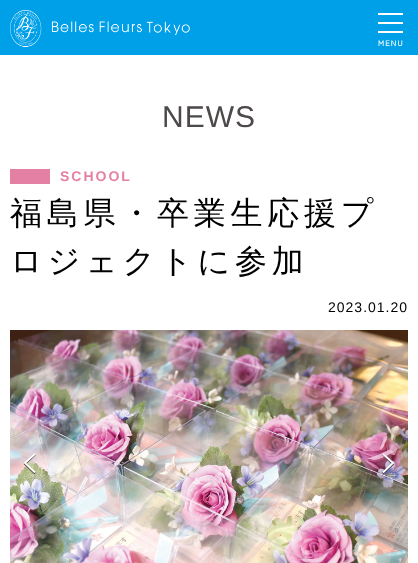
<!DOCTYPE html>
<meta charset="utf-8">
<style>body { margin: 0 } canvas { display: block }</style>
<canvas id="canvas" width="418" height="563"></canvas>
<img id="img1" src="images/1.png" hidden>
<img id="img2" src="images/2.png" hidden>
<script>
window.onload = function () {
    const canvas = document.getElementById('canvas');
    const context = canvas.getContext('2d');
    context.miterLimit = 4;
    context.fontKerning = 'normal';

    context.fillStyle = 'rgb(255, 255, 255)';
    context.fillRect(0, 0, 418, 563);
    context.fillStyle = 'rgb(0, 160, 233)';
    context.fillRect(0, 0, 418, 55);
    context.drawImage(document.getElementById('img1'), 10, 10, 180, 37);
    context.fillStyle = 'rgb(255, 255, 255)';
    context.fillRect(378, 13, 25, 2);
    context.fillRect(378, 22, 25, 2);
    context.fillRect(378, 31, 25, 2);
    context.fillStyle = 'rgb(229, 128, 165)';
    context.fillRect(10, 169, 40, 15);
    context.drawImage(document.getElementById('img2'), 10, 330, 398, 233);
    context.beginPath();
    context.moveTo(35, 473.5);
    context.lineTo(25, 464);
    context.lineTo(35, 454.5);
    context.strokeStyle = 'rgb(51, 45, 43)';
    context.lineWidth = 1.8;
    context.stroke();
    context.beginPath();
    context.moveTo(35, 472.5);
    context.lineTo(25, 463);
    context.lineTo(35, 454);
    context.strokeStyle = 'rgb(255, 255, 255)';
    context.stroke();
    context.beginPath();
    context.moveTo(383, 454.5);
    context.lineTo(393, 464);
    context.lineTo(383, 473.5);
    context.strokeStyle = 'rgb(51, 45, 43)';
    context.stroke();
    context.beginPath();
    context.moveTo(383, 454);
    context.lineTo(393, 463);
    context.lineTo(383, 472.5);
    context.strokeStyle = 'rgb(255, 255, 255)';
    context.stroke();
    context.letterSpacing = '1px';
    context.font = '500 8px Zen Kaku Gothic New';
    context.fillStyle = 'rgb(255, 255, 255)';
    context.fillText('MENU', 378, 46);
    context.font = '30px Liberation Sans';
    context.fillStyle = 'rgb(76, 73, 72)';
    context.fillText('NEWS', 162, 127);
    context.letterSpacing = '2px';
    context.font = 'bold 14px Liberation Sans';
    context.fillStyle = 'rgb(229, 128, 165)';
    context.fillText('SCHOOL', 60, 181);
    context.letterSpacing = '4.75px';
    context.font = '500 32px WenQuanYi Zen Hei';
    context.fillStyle = 'rgb(0, 0, 0)';
    context.fillText('福島県・卒業生応援プ', 10, 224);
    context.fillText('ロジェクトに参加', 10, 272);
    context.letterSpacing = '1px';
    context.font = '14px Liberation Sans';
    context.fillText('2023.01.20', 328, 312);
};
</script>
